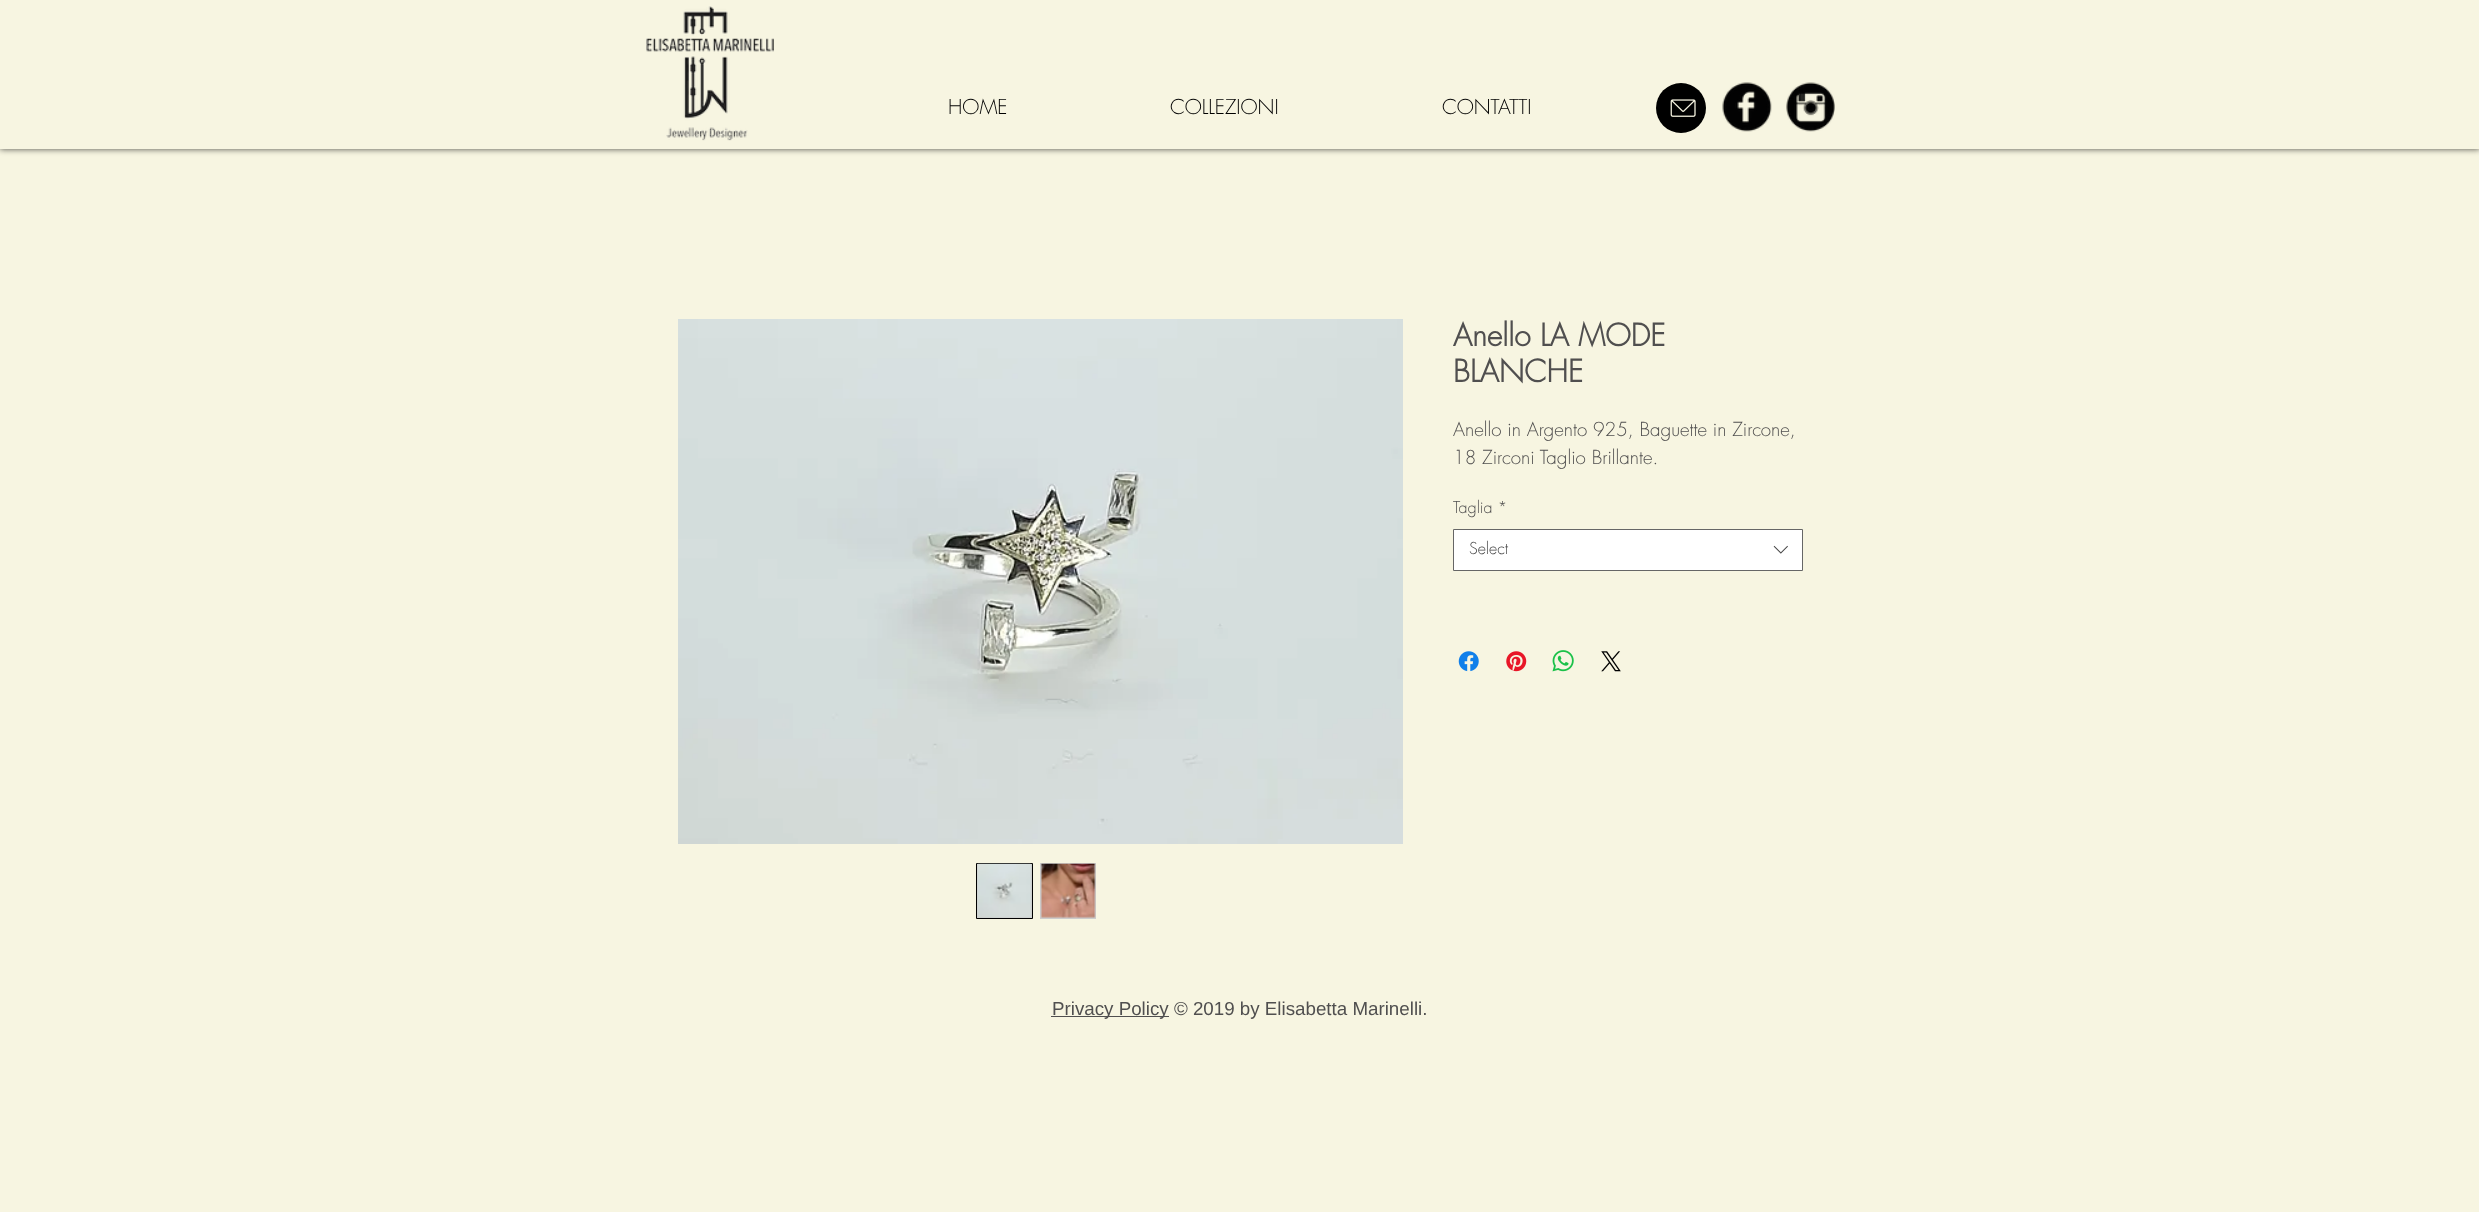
<!DOCTYPE html>
<meta charset="utf-8">
<style>body { margin: 0 } canvas { display: block }</style>
<canvas id="canvas" width="2479" height="1212"></canvas>
<img id="img1" src="images/1.png" hidden>
<img id="img2" src="images/2.png" hidden>
<img id="img3" src="images/3.png" hidden>
<img id="img4" src="images/4.png" hidden>
<img id="img5" src="images/5.png" hidden>
<img id="img6" src="images/6.png" hidden>
<img id="img7" src="images/7.png" hidden>
<img id="img8" src="images/8.png" hidden>
<img id="img9" src="images/9.png" hidden>
<img id="img10" src="images/10.png" hidden>
<img id="img11" src="images/11.png" hidden>
<img id="img12" src="images/12.png" hidden>
<script>
window.onload = function () {
    const canvas = document.getElementById('canvas');
    const context = canvas.getContext('2d');
    context.miterLimit = 4;
    context.fontKerning = 'normal';

    context.fillStyle = 'rgb(247, 245, 225)';
    context.fillRect(0, 0, 2479, 1212);
    context.fillStyle = 'rgba(0, 0, 0, 0.7)';
    context.filter = 'blur(3px)';
    context.beginPath();
    context.rect(0, 0, 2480, 149);
    context.fill();
    context.filter = 'none';
    context.fillStyle = 'rgb(247, 245, 225)';
    context.fillRect(0, 0, 2479, 149);
    context.drawImage(document.getElementById('img1'), 646, 6, 128, 135);
    context.fillStyle = 'rgb(0, 0, 0)';
    context.beginPath();
    context.arc(1681, 108, 25, 0, 2 * Math.PI);
    context.fill();
    context.drawImage(document.getElementById('img2'), 1670, 99, 26, 18);
    context.drawImage(document.getElementById('img3'), 1722, 82, 50, 50);
    context.drawImage(document.getElementById('img4'), 1786, 82, 49, 50);
    context.drawImage(document.getElementById('img5'), 678, 319, 725, 525);
    context.fillStyle = 'rgb(204, 204, 204)';
    context.beginPath();
    context.rect(976.5, 863.5, 56, 55);
    context.fill();
    context.strokeStyle = 'rgb(0, 0, 0)';
    context.stroke();
    context.drawImage(document.getElementById('img6'), 977, 863, 55, 55);
    context.fillRect(1040, 863, 56, 56);
    context.drawImage(document.getElementById('img7'), 1040, 863, 56, 55);
    context.fillStyle = 'rgb(255, 255, 255)';
    context.beginPath();
    context.rect(1453.5, 529.5, 349, 41);
    context.fill();
    context.strokeStyle = 'rgb(102, 102, 102)';
    context.stroke();
    context.drawImage(document.getElementById('img8'), 1773, 545, 15, 9);
    context.drawImage(document.getElementById('img9'), 1458, 651, 21, 21);
    context.drawImage(document.getElementById('img10'), 1506, 651, 21, 21);
    context.drawImage(document.getElementById('img11'), 1552, 650, 22, 22);
    context.drawImage(document.getElementById('img12'), 1601, 651, 20, 21);
    context.fillStyle = 'rgb(80, 79, 79)';
    context.fillRect(1051, 1016, 118, 1);
    context.font = '300 20px futura';
    context.fillStyle = 'rgb(0, 0, 0)';
    context.fillText('HOME', 948, 114);
    context.fillText('COLLEZIONI', 1170, 114);
    context.fillText('CONTATTI', 1442, 114);
    context.font = 'bold 30px futura';
    context.fillStyle = 'rgb(80, 79, 79)';
    context.fillText('Anello LA MODE', 1453, 346);
    context.fillText('BLANCHE', 1453, 382);
    context.font = '300 18.75px futura';
    context.fillText('Anello in Argento 925, Baguette in Zircone,', 1453, 436);
    context.fillText('18 Zirconi Taglio Brillante.', 1453, 464);
    context.font = '300 16px futura';
    context.fillText('Taglia *', 1453, 513);
    context.fillStyle = 'rgb(68, 68, 68)';
    context.fillText('Select', 1469, 554);
    context.font = '18.75px Liberation Sans';
    context.fillStyle = 'rgb(80, 79, 79)';
    context.fillText('Privacy Policy © 2019 by Elisabetta Marinelli.', 1052, 1015);
};
</script>
